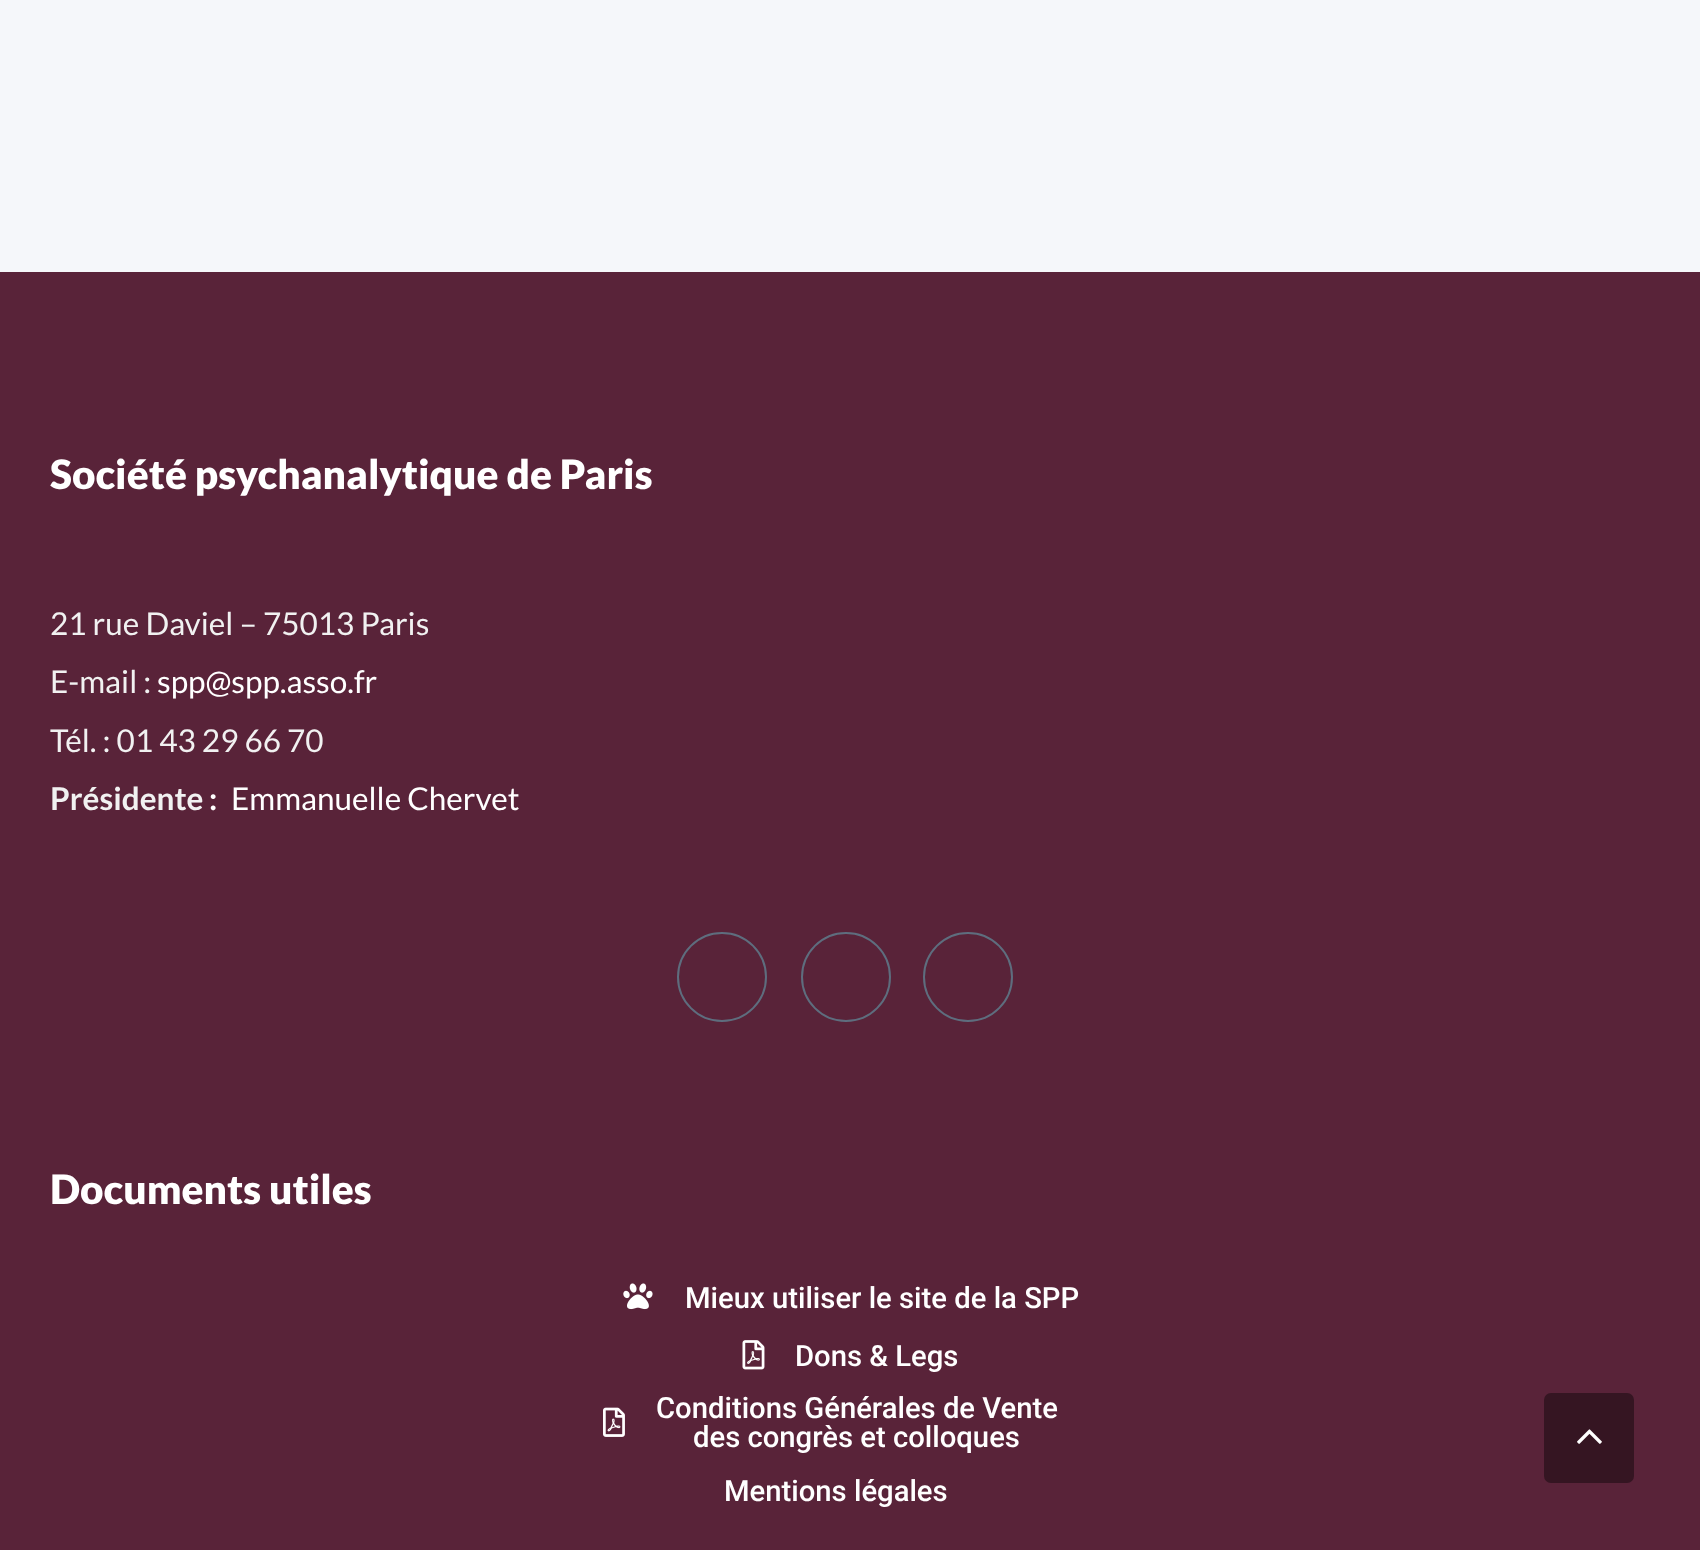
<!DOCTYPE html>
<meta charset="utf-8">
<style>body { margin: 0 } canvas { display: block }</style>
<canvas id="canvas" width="1700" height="1550"></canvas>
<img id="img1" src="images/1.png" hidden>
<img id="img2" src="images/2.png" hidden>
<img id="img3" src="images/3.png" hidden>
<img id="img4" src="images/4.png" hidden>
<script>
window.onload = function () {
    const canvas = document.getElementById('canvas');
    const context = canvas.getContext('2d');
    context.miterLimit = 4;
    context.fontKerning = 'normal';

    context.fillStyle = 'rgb(245, 247, 250)';
    context.fillRect(0, 0, 1700, 1550);
    context.fillStyle = 'rgb(89, 35, 57)';
    context.fillRect(0, 272, 1700, 1278);
    context.beginPath();
    context.arc(722, 977, 44, 0, 2 * Math.PI);
    context.strokeStyle = 'rgb(94, 109, 126)';
    context.lineWidth = 2;
    context.stroke();
    context.beginPath();
    context.arc(846, 977, 44, 0, 2 * Math.PI);
    context.stroke();
    context.beginPath();
    context.arc(968, 977, 44, 0, 2 * Math.PI);
    context.stroke();
    context.drawImage(document.getElementById('img1'), 623, 1283, 30, 27);
    context.drawImage(document.getElementById('img2'), 742, 1340, 23, 30);
    context.drawImage(document.getElementById('img3'), 603, 1407, 22, 30);
    context.fillStyle = 'rgb(53, 21, 34)';
    context.beginPath();
    context.roundRect(1544, 1393, 90, 90, 7);
    context.fill();
    context.drawImage(document.getElementById('img4'), 1577, 1429, 25, 15);
    context.font = '900 40.5px Lato';
    context.fillStyle = 'rgb(255, 255, 255)';
    context.fillText('Société psychanalytique de Paris', 50, 489);
    context.font = '31.5px Lato';
    context.fillStyle = 'rgb(241, 241, 241)';
    context.fillText('21 rue Daviel – 75013 Paris', 50, 635);
    context.fillText('E-mail :', 50, 693);
    context.fillStyle = 'rgb(255, 255, 255)';
    context.fillText('spp@spp.asso.fr', 157, 693);
    context.fillStyle = 'rgb(241, 241, 241)';
    context.fillText('Tél. : 01 43 29 66 70', 50, 752);
    context.font = 'bold 31.5px Lato';
    context.fillText('Présidente', 50, 810);
    context.fillStyle = 'rgb(255, 255, 255)';
    context.fillText(':', 209, 810);
    context.font = '31.5px Lato';
    context.fillText('Emmanuelle Chervet', 231, 810);
    context.font = '900 40.5px Lato';
    context.fillText('Documents utiles', 50, 1204);
    context.font = '500 29.25px Roboto';
    context.fillText('Mieux utiliser le site de la SPP', 685, 1308);
    context.fillText('Dons & Legs', 795, 1366);
    context.fillText('Conditions Générales de Vente', 656, 1418);
    context.fillText('des congrès et colloques', 693, 1447);
    context.fillText('Mentions légales', 724, 1501);
};
</script>
